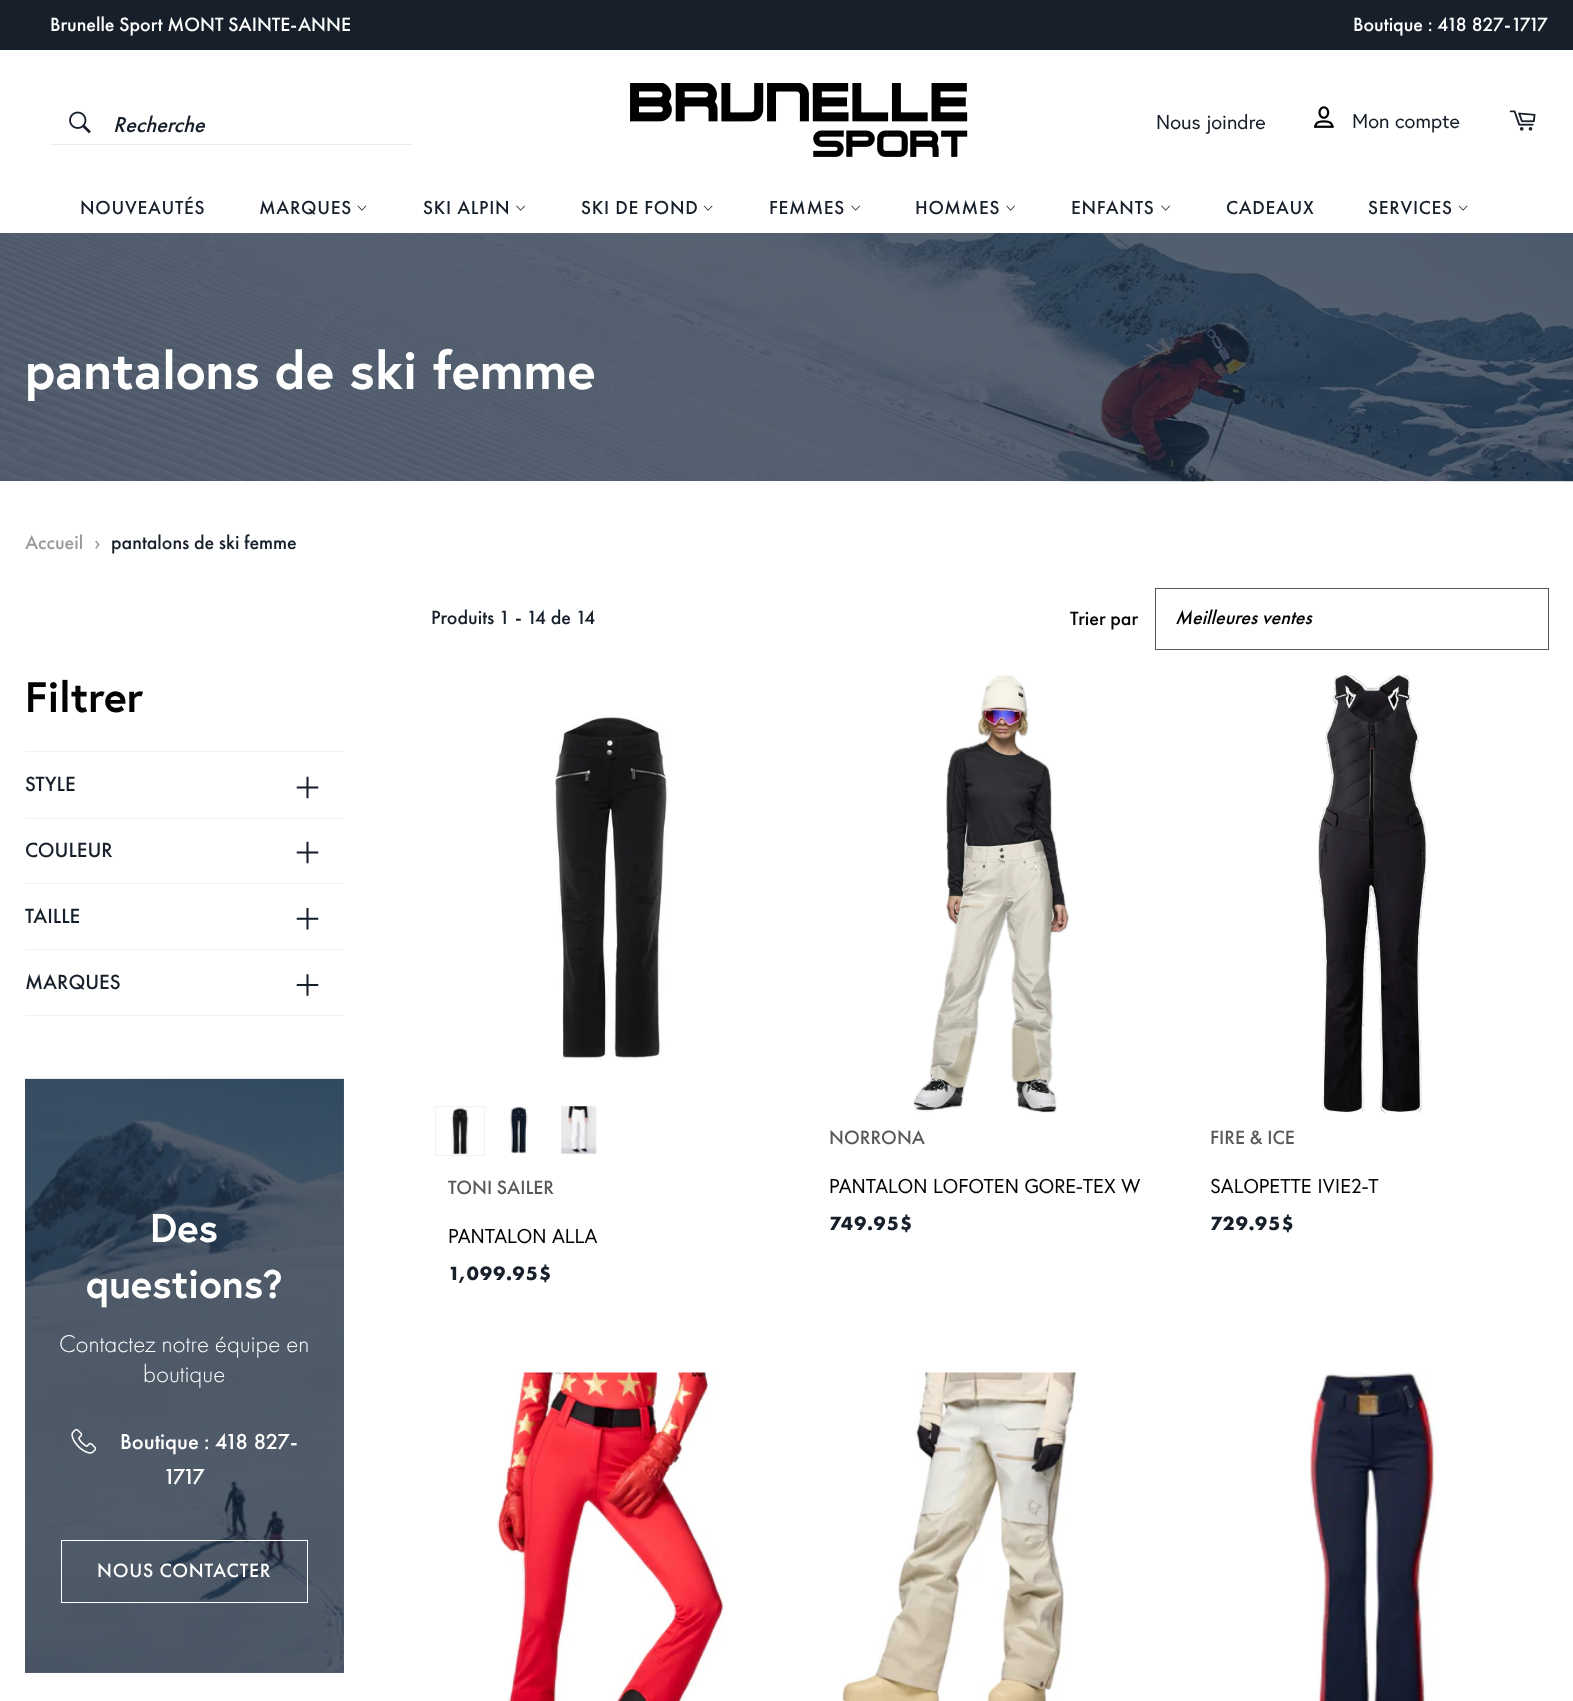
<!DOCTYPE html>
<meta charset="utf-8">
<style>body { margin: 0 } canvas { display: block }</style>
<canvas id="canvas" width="1573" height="1701"></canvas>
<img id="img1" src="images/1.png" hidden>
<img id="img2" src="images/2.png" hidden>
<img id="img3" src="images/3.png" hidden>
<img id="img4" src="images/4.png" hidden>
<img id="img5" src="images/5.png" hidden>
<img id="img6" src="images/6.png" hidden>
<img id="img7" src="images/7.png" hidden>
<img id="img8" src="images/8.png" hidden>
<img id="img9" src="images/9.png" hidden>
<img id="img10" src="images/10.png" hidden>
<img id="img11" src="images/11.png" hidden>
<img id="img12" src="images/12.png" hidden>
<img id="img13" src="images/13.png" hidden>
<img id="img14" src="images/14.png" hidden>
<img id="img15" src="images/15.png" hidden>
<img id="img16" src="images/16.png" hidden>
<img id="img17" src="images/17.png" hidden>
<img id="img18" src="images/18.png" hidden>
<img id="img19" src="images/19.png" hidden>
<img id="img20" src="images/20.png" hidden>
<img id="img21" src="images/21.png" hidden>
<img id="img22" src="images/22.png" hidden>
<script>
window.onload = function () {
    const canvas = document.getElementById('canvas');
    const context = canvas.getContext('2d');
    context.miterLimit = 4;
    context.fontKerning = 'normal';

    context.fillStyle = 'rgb(255, 255, 255)';
    context.fillRect(0, 0, 1573, 1701);
    context.fillStyle = 'rgb(88, 100, 115)';
    context.fillRect(25, 1079, 319, 594);
    context.fillStyle = 'rgb(22, 31, 42)';
    context.fillRect(0, 0, 1573, 50);
    context.drawImage(document.getElementById('img1'), 69, 111, 22, 23);
    context.fillStyle = 'rgb(235, 235, 235)';
    context.fillRect(50, 144, 363, 1);
    context.drawImage(document.getElementById('img2'), 630, 83, 338, 74);
    context.drawImage(document.getElementById('img3'), 1314, 106, 20, 22);
    context.drawImage(document.getElementById('img4'), 1509, 110, 27, 21);
    context.drawImage(document.getElementById('img5'), 357, 205, 10, 6);
    context.drawImage(document.getElementById('img6'), 516, 205, 9, 6);
    context.drawImage(document.getElementById('img7'), 703, 205, 10, 6);
    context.drawImage(document.getElementById('img6'), 851, 205, 9, 6);
    context.drawImage(document.getElementById('img6'), 1006, 205, 9, 6);
    context.drawImage(document.getElementById('img6'), 1161, 205, 9, 6);
    context.drawImage(document.getElementById('img7'), 1458, 205, 10, 6);
    context.drawImage(document.getElementById('img8'), 0, 233, 1573, 249);
    context.strokeStyle = 'rgb(89, 89, 89)';
    context.strokeRect(1155.5, 588.5, 393, 61);
    context.fillStyle = 'rgb(241, 241, 237)';
    context.fillRect(25, 751, 319, 1);
    context.fillRect(25, 818, 319, 1);
    context.drawImage(document.getElementById('img9'), 296, 776, 23, 23);
    context.fillRect(25, 883, 319, 1);
    context.drawImage(document.getElementById('img9'), 296, 841, 23, 23);
    context.fillRect(25, 949, 319, 1);
    context.drawImage(document.getElementById('img10'), 296, 908, 23, 22);
    context.fillRect(25, 1015, 319, 1);
    context.drawImage(document.getElementById('img11'), 296, 974, 23, 22);
    context.drawImage(document.getElementById('img12'), 25, 1078, 319, 595);
    context.drawImage(document.getElementById('img13'), 71, 1429, 25, 25);
    context.strokeStyle = 'rgb(255, 255, 255)';
    context.strokeRect(61.5, 1540.5, 246, 62);
    context.drawImage(document.getElementById('img14'), 555, 716, 114, 344);
    context.strokeStyle = 'rgb(241, 241, 237)';
    context.strokeRect(435.5, 1106.5, 49, 49);
    context.drawImage(document.getElementById('img15'), 451, 1107, 18, 48);
    context.drawImage(document.getElementById('img16'), 509, 1106, 19, 48);
    context.drawImage(document.getElementById('img17'), 561, 1106, 36, 48);
    context.drawImage(document.getElementById('img18'), 913, 675, 156, 438);
    context.drawImage(document.getElementById('img19'), 1318, 675, 109, 438);
    context.drawImage(document.getElementById('img20'), 497, 1372, 228, 329);
    context.drawImage(document.getElementById('img21'), 842, 1372, 235, 329);
    context.drawImage(document.getElementById('img22'), 1309, 1372, 128, 329);
    context.font = '500 20px Futura PT';
    context.fillStyle = 'rgb(255, 255, 255)';
    context.fillText('Brunelle Sport MONT SAINTE-ANNE', 50, 31);
    context.fillText('Boutique : 418 827-1717', 1353, 31);
    context.font = 'italic 500 22.5px Futura PT';
    context.fillStyle = 'rgb(22, 31, 42)';
    context.fillText('Recherche', 113, 132);
    context.font = '20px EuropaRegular';
    context.fillText('Nous joindre', 1156, 129);
    context.fillText('Mon compte', 1352, 128);
    context.letterSpacing = '0.75px';
    context.font = '500 19.5px Futura PT';
    context.fillText('NOUVEAUTÉS', 80, 214);
    context.fillText('MARQUES', 259, 214);
    context.fillText('SKI ALPIN', 423, 214);
    context.fillText('SKI DE FOND', 581, 214);
    context.fillText('FEMMES', 769, 214);
    context.fillText('HOMMES', 915, 214);
    context.fillText('ENFANTS', 1071, 214);
    context.fillText('CADEAUX', 1226, 214);
    context.fillText('SERVICES', 1368, 214);
    context.letterSpacing = '0px';
    context.font = 'bold 52.5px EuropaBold';
    context.fillStyle = 'rgb(255, 255, 255)';
    context.fillText('pantalons de ski femme', 25, 389);
    context.font = '500 20px Futura PT';
    context.fillStyle = 'rgb(154, 154, 154)';
    context.fillText('Accueil', 25, 549);
    context.fillText('›', 94, 549);
    context.fillStyle = 'rgb(22, 31, 42)';
    context.fillText('pantalons de ski femme', 111, 549);
    context.fillText('Produits 1 - 14 de 14', 431, 624);
    context.fillStyle = 'rgb(3, 3, 3)';
    context.fillText('Trier par', 1070, 625);
    context.font = 'italic 500 20px Futura PT';
    context.fillText('Meilleures ventes', 1175, 624);
    context.font = 'bold 42.5px EuropaBold';
    context.fillText('Filtrer', 25, 712);
    context.font = '500 21.25px Futura PT';
    context.fillStyle = 'rgb(22, 31, 42)';
    context.fillText('STYLE', 25, 791);
    context.fillText('COULEUR', 25, 857);
    context.fillText('TAILLE', 25, 923);
    context.fillText('MARQUES', 25, 989);
    context.font = 'bold 40px EuropaBold';
    context.fillStyle = 'rgb(255, 255, 255)';
    context.fillText('Des', 150, 1242);
    context.fillText('questions?', 86, 1298);
    context.font = '300 25px Futura PT';
    context.fillText('Contactez notre équipe en', 59, 1352);
    context.fillText('boutique', 143, 1382);
    context.font = '500 22.5px Futura PT';
    context.fillText('Boutique : 418 827-', 120, 1449);
    context.fillText('1717', 163, 1484);
    context.letterSpacing = '0.75px';
    context.font = '500 20px Futura PT';
    context.fillText('NOUS CONTACTER', 97, 1577);
    context.letterSpacing = '0px';
    context.fillStyle = 'rgb(89, 89, 89)';
    context.fillText('TONI SAILER', 448, 1194);
    context.font = '20px EuropaRegular';
    context.fillStyle = 'rgb(3, 3, 3)';
    context.fillText('PANTALON ALLA', 448, 1243);
    context.letterSpacing = '1.25px';
    context.font = 'bold 20px Futura PT';
    context.fillStyle = 'rgb(22, 31, 42)';
    context.fillText('1,099.95$', 448, 1280);
    context.letterSpacing = '0px';
    context.font = '500 20px Futura PT';
    context.fillStyle = 'rgb(89, 89, 89)';
    context.fillText('NORRONA', 829, 1144);
    context.font = '20px EuropaRegular';
    context.fillStyle = 'rgb(3, 3, 3)';
    context.fillText('PANTALON LOFOTEN GORE-TEX W', 829, 1193);
    context.letterSpacing = '1.25px';
    context.font = 'bold 20px Futura PT';
    context.fillStyle = 'rgb(22, 31, 42)';
    context.fillText('749.95$', 829, 1230);
    context.letterSpacing = '0px';
    context.font = '500 20px Futura PT';
    context.fillStyle = 'rgb(89, 89, 89)';
    context.fillText('FIRE & ICE', 1210, 1144);
    context.font = '20px EuropaRegular';
    context.fillStyle = 'rgb(3, 3, 3)';
    context.fillText('SALOPETTE IVIE2-T', 1210, 1193);
    context.letterSpacing = '1.25px';
    context.font = 'bold 20px Futura PT';
    context.fillStyle = 'rgb(22, 31, 42)';
    context.fillText('729.95$', 1210, 1230);
};
</script>
